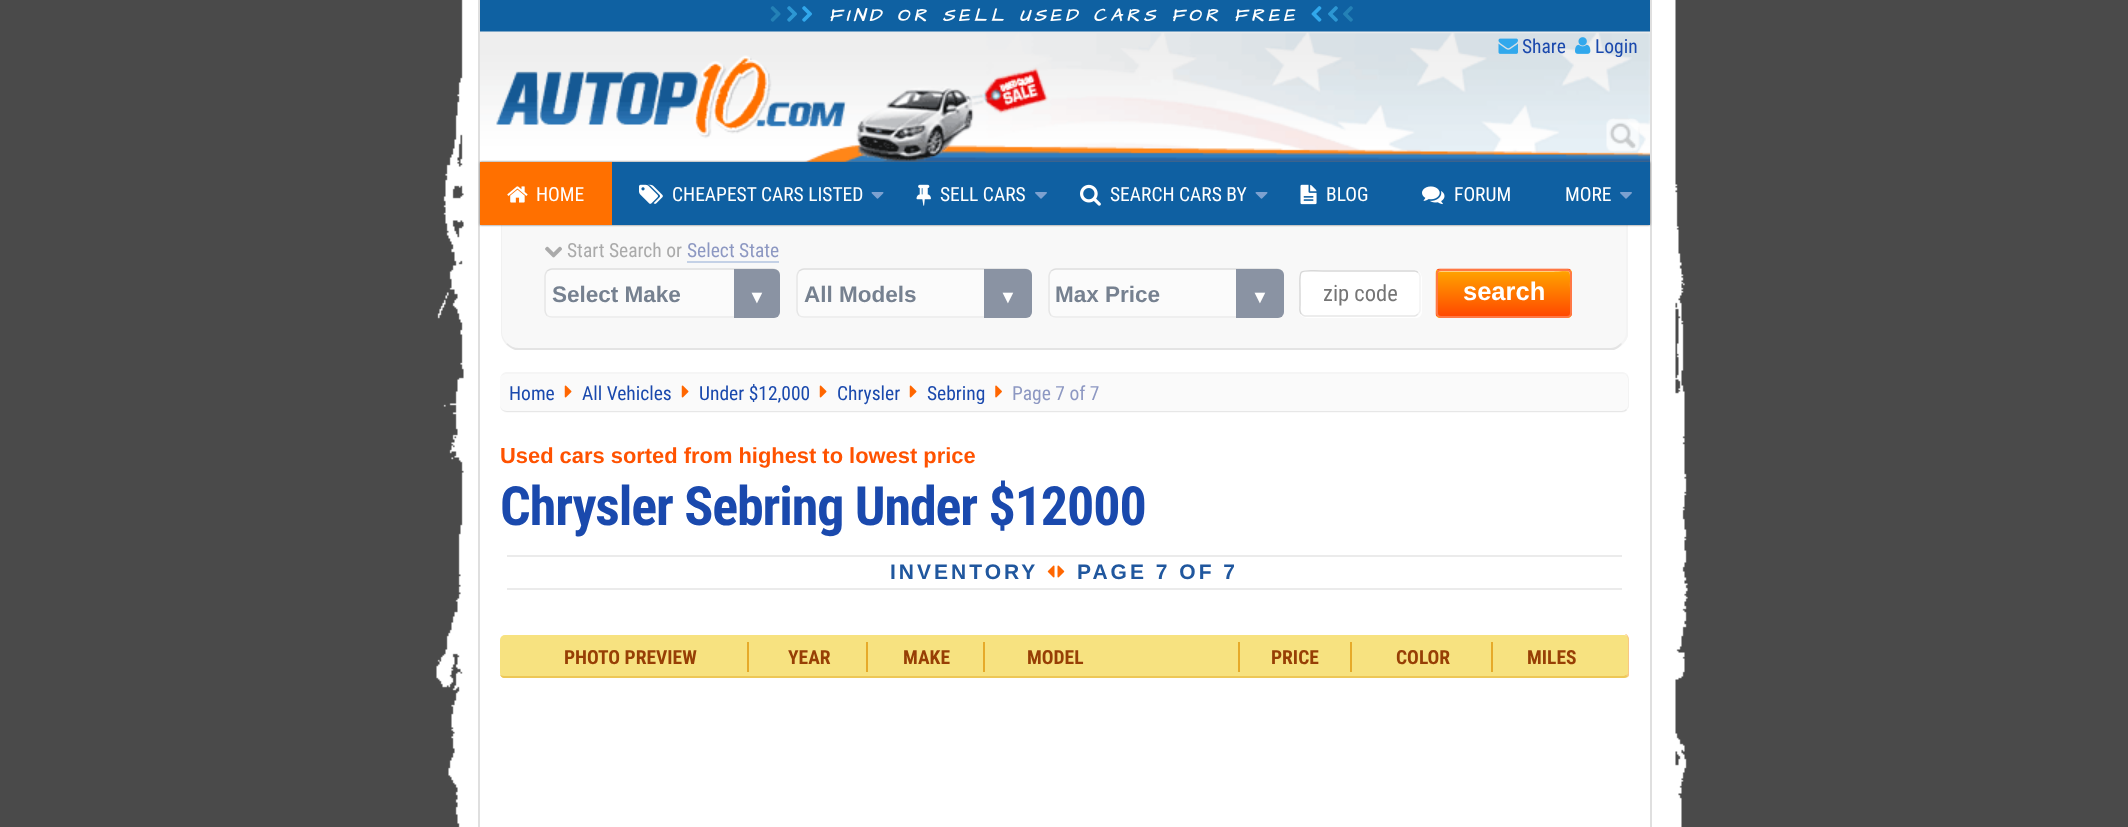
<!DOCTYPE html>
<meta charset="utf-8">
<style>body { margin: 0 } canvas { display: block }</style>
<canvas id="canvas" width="2128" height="827"></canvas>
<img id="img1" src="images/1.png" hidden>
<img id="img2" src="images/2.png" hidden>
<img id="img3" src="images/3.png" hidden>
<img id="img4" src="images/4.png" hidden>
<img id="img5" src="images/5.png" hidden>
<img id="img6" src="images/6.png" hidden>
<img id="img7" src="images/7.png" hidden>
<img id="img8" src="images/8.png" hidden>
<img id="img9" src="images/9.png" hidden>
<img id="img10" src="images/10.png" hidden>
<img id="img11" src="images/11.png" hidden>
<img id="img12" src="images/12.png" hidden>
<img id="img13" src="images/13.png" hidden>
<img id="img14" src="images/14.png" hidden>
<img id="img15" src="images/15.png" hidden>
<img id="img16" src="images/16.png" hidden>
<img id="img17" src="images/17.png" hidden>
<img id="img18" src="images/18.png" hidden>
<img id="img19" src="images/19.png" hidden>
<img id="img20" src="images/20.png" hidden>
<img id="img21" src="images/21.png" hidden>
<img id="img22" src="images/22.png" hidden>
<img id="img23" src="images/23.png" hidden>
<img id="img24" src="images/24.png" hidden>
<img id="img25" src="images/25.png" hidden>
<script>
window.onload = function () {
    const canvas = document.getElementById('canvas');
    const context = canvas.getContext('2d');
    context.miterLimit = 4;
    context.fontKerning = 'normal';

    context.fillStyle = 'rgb(74, 74, 74)';
    context.fillRect(0, 0, 2128, 827);
    context.drawImage(document.getElementById('img1'), 436, 0, 1252, 827);
    context.fillStyle = 'rgb(223, 223, 223)';
    context.beginPath();
    context.moveTo(478, 0);
    context.lineTo(1652, 0);
    context.lineTo(1652, 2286);
    context.bezierCurveTo(1652, 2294, 1645, 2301, 1636, 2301);
    context.lineTo(494, 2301);
    context.bezierCurveTo(485, 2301, 478, 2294, 478, 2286);
    context.closePath();
    context.moveTo(480, 0);
    context.lineTo(1650, 0);
    context.lineTo(1650, 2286);
    context.bezierCurveTo(1650, 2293, 1644, 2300, 1636, 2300);
    context.lineTo(494, 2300);
    context.bezierCurveTo(486, 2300, 480, 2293, 480, 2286);
    context.closePath();
    context.fill('evenodd');
    context.fillStyle = 'rgb(15, 97, 162)';
    context.fillRect(480, 0, 1170, 32);
    context.drawImage(document.getElementById('img2'), 770, 6, 11, 16);
    context.drawImage(document.getElementById('img3'), 787, 6, 10, 16);
    context.drawImage(document.getElementById('img4'), 802, 6, 10, 16);
    context.drawImage(document.getElementById('img5'), 1311, 6, 11, 16);
    context.drawImage(document.getElementById('img6'), 1328, 6, 10, 16);
    context.drawImage(document.getElementById('img7'), 1343, 6, 10, 16);
    context.drawImage(document.getElementById('img8'), 480, 31, 1170, 131);
    context.drawImage(document.getElementById('img9'), 1498, 38, 20, 16);
    context.drawImage(document.getElementById('img10'), 1575, 37, 16, 17);
    context.drawImage(document.getElementById('img11'), 1606, 118, 34, 34);
    context.fillStyle = 'rgb(248, 248, 248)';
    context.beginPath();
    context.roundRect(501, 225, 1127, 125, [0, 0, 18, 18]);
    context.fill();
    context.fillStyle = 'rgb(244, 244, 244)';
    context.beginPath();
    context.moveTo(1628, 225);
    context.lineTo(1628, 336);
    context.bezierCurveTo(1627, 339, 1625, 342, 1622, 344);
    context.lineTo(1621, 343);
    context.bezierCurveTo(1624, 340, 1626, 336, 1626, 332);
    context.lineTo(1626, 225);
    context.closePath();
    context.fill();
    context.fillStyle = 'rgb(228, 228, 228)';
    context.beginPath();
    context.moveTo(515, 350);
    context.bezierCurveTo(512, 349, 509, 347, 506, 344);
    context.lineTo(507, 343);
    context.bezierCurveTo(510, 346, 514, 348, 519, 348);
    context.lineTo(1610, 348);
    context.bezierCurveTo(1614, 348, 1618, 346, 1621, 343);
    context.lineTo(1622, 344);
    context.bezierCurveTo(1620, 347, 1617, 349, 1614, 350);
    context.closePath();
    context.fill();
    context.fillStyle = 'rgb(241, 241, 241)';
    context.beginPath();
    context.moveTo(501, 225);
    context.lineTo(502, 225);
    context.lineTo(502, 332);
    context.bezierCurveTo(502, 336, 504, 340, 507, 343);
    context.lineTo(506, 344);
    context.bezierCurveTo(503, 341, 501, 336, 501, 332);
    context.closePath();
    context.fill();
    context.fillStyle = 'rgb(99, 99, 99)';
    context.filter = 'blur(1px)';
    context.beginPath();
    context.rect(480, 162, 1170, 63);
    context.fill();
    context.filter = 'none';
    context.fillStyle = 'rgb(15, 96, 162)';
    context.fillRect(612, 162, 1038, 63);
    context.fillStyle = 'rgb(255, 112, 0)';
    context.fillRect(480, 162, 132, 63);
    context.drawImage(document.getElementById('img12'), 507, 186, 21, 17);
    context.drawImage(document.getElementById('img13'), 639, 184, 24, 20);
    context.drawImage(document.getElementById('img14'), 871, 192, 13, 7);
    context.drawImage(document.getElementById('img15'), 916, 184, 15, 22);
    context.drawImage(document.getElementById('img16'), 1035, 192, 12, 7);
    context.drawImage(document.getElementById('img17'), 1080, 184, 21, 22);
    context.drawImage(document.getElementById('img14'), 1255, 192, 13, 7);
    context.drawImage(document.getElementById('img18'), 1300, 184, 17, 21);
    context.drawImage(document.getElementById('img19'), 1422, 186, 23, 19);
    context.drawImage(document.getElementById('img16'), 1620, 192, 12, 7);
    context.drawImage(document.getElementById('img20'), 545, 246, 17, 12);
    context.fillStyle = 'rgb(196, 209, 230)';
    context.fillRect(687, 261, 92, 2);
    context.fillStyle = 'rgb(251, 251, 251)';
    context.beginPath();
    context.roundRect(545, 269, 235, 49, 8);
    context.fill();
    context.beginPath();
    context.moveTo(547, 271);
    context.bezierCurveTo(548.5, 270, 550, 269, 552, 269);
    context.lineTo(772.5, 269);
    context.bezierCurveTo(774.5, 269, 776, 270, 777.5, 271);
    context.strokeStyle = 'rgb(222, 222, 222)';
    context.lineWidth = 1.5;
    context.stroke();
    context.beginPath();
    context.moveTo(777.5, 271);
    context.bezierCurveTo(778.5, 272.5, 779, 274, 779, 276);
    context.lineTo(779, 310.5);
    context.bezierCurveTo(779, 312.5, 778.5, 314, 777.5, 315.5);
    context.bezierCurveTo(776, 316.5, 774.5, 317, 772.5, 317);
    context.lineTo(552, 317);
    context.bezierCurveTo(550, 317, 548.5, 316.5, 547, 315.5);
    context.strokeStyle = 'rgb(235, 235, 235)';
    context.stroke();
    context.beginPath();
    context.moveTo(547, 315.5);
    context.bezierCurveTo(546, 314, 545, 312.5, 545, 310.5);
    context.lineTo(545, 276);
    context.bezierCurveTo(545, 274, 546, 272.5, 547, 271);
    context.strokeStyle = 'rgb(230, 230, 230)';
    context.stroke();
    context.fillStyle = 'rgb(138, 147, 163)';
    context.beginPath();
    context.roundRect(734, 269, 46, 49, [0, 6, 6, 0]);
    context.fill();
    context.fillStyle = 'rgb(251, 251, 251)';
    context.beginPath();
    context.roundRect(797, 269, 235, 49, 8);
    context.fill();
    context.beginPath();
    context.moveTo(799, 271);
    context.bezierCurveTo(800.5, 270, 802, 269, 804, 269);
    context.lineTo(1024.5, 269);
    context.bezierCurveTo(1026.5, 269, 1028, 270, 1029.5, 271);
    context.strokeStyle = 'rgb(222, 222, 222)';
    context.stroke();
    context.beginPath();
    context.moveTo(1029.5, 271);
    context.bezierCurveTo(1030.5, 272.5, 1031, 274, 1031, 276);
    context.lineTo(1031, 310.5);
    context.bezierCurveTo(1031, 312.5, 1030.5, 314, 1029.5, 315.5);
    context.bezierCurveTo(1028, 316.5, 1026.5, 317, 1024.5, 317);
    context.lineTo(804, 317);
    context.bezierCurveTo(802, 317, 800.5, 316.5, 799, 315.5);
    context.strokeStyle = 'rgb(235, 235, 235)';
    context.stroke();
    context.beginPath();
    context.moveTo(799, 315.5);
    context.bezierCurveTo(798, 314, 797, 312.5, 797, 310.5);
    context.lineTo(797, 276);
    context.bezierCurveTo(797, 274, 798, 272.5, 799, 271);
    context.strokeStyle = 'rgb(230, 230, 230)';
    context.stroke();
    context.fillStyle = 'rgb(138, 147, 163)';
    context.beginPath();
    context.roundRect(984, 269, 48, 49, [0, 6, 6, 0]);
    context.fill();
    context.fillStyle = 'rgb(251, 251, 251)';
    context.beginPath();
    context.roundRect(1049, 269, 235, 49, 8);
    context.fill();
    context.beginPath();
    context.moveTo(1051, 271);
    context.bezierCurveTo(1052.5, 270, 1054, 269, 1056, 269);
    context.lineTo(1276.5, 269);
    context.bezierCurveTo(1278.5, 269, 1280, 270, 1281.5, 271);
    context.strokeStyle = 'rgb(222, 222, 222)';
    context.stroke();
    context.beginPath();
    context.moveTo(1281.5, 271);
    context.bezierCurveTo(1282.5, 272.5, 1283, 274, 1283, 276);
    context.lineTo(1283, 310.5);
    context.bezierCurveTo(1283, 312.5, 1282.5, 314, 1281.5, 315.5);
    context.bezierCurveTo(1280, 316.5, 1278.5, 317, 1276.5, 317);
    context.lineTo(1056, 317);
    context.bezierCurveTo(1054, 317, 1052.5, 316.5, 1051, 315.5);
    context.strokeStyle = 'rgb(235, 235, 235)';
    context.stroke();
    context.beginPath();
    context.moveTo(1051, 315.5);
    context.bezierCurveTo(1050, 314, 1049, 312.5, 1049, 310.5);
    context.lineTo(1049, 276);
    context.bezierCurveTo(1049, 274, 1050, 272.5, 1051, 271);
    context.strokeStyle = 'rgb(230, 230, 230)';
    context.stroke();
    context.fillStyle = 'rgb(138, 147, 163)';
    context.beginPath();
    context.roundRect(1236, 269, 48, 49, [0, 6, 6, 0]);
    context.fill();
    context.fillStyle = 'rgb(255, 255, 255)';
    context.beginPath();
    context.moveTo(1302, 316);
    context.bezierCurveTo(1304, 317, 1305, 318, 1307, 318);
    context.lineTo(1416, 318);
    context.bezierCurveTo(1419, 318, 1422, 315, 1422, 312);
    context.lineTo(1422, 278);
    context.bezierCurveTo(1422, 276, 1421, 275, 1420, 273);
    context.lineTo(1420, 276);
    context.lineTo(1420, 310);
    context.bezierCurveTo(1420, 314, 1418, 316, 1414, 316);
    context.lineTo(1305, 316);
    context.closePath();
    context.fill();
    context.beginPath();
    context.roundRect(1299, 270, 122, 47, 6);
    context.fill();
    context.beginPath();
    context.moveTo(1418, 272.5);
    context.bezierCurveTo(1419, 273.5, 1420, 274.5, 1420, 276);
    context.lineTo(1420, 310.5);
    context.bezierCurveTo(1420, 312, 1419, 313, 1418, 314);
    context.strokeStyle = 'rgb(243, 243, 243)';
    context.stroke();
    context.beginPath();
    context.moveTo(1418, 314);
    context.bezierCurveTo(1417, 315, 1416, 316, 1414.5, 316);
    context.lineTo(1305, 316);
    context.bezierCurveTo(1303.5, 316, 1302.5, 315, 1301.5, 314);
    context.strokeStyle = 'rgb(231, 231, 231)';
    context.stroke();
    context.beginPath();
    context.moveTo(1301.5, 314);
    context.bezierCurveTo(1299, 312, 1300, 307.5, 1300, 305);
    context.lineTo(1300, 293);
    context.bezierCurveTo(1300, 267, 1296, 271, 1323, 271);
    context.lineTo(1414.5, 271);
    context.bezierCurveTo(1416, 271, 1417, 271.5, 1418, 272.5);
    context.strokeStyle = 'rgb(216, 216, 216)';
    context.stroke();
    context.drawImage(document.getElementById('img21'), 1435, 268, 137, 50);
    context.fillStyle = 'rgba(255, 255, 255, 0.5)';
    context.beginPath();
    context.moveTo(1440, 272);
    context.lineTo(1547, 272);
    context.bezierCurveTo(1573, 272, 1570, 266, 1570, 288);
    context.lineTo(1570, 316);
    context.bezierCurveTo(1571, 316, 1571, 315, 1571, 314);
    context.lineTo(1571, 273);
    context.bezierCurveTo(1571, 271, 1570, 270, 1568, 270);
    context.lineTo(1440, 270);
    context.bezierCurveTo(1438, 270, 1437, 271, 1437, 273);
    context.lineTo(1437, 274);
    context.bezierCurveTo(1437, 273, 1438, 272, 1440, 272);
    context.closePath();
    context.fill();
    context.beginPath();
    context.roundRect(1437, 270, 134, 47, 4);
    context.strokeStyle = 'rgb(255, 120, 69)';
    context.lineWidth = 2;
    context.stroke();
    context.fillStyle = 'rgb(250, 250, 250)';
    context.beginPath();
    context.roundRect(500, 372, 1129, 41, 8);
    context.fill();
    context.fillStyle = 'rgb(245, 245, 245)';
    context.beginPath();
    context.moveTo(507, 372);
    context.lineTo(1622, 372);
    context.bezierCurveTo(1624, 372, 1626, 373, 1627, 374);
    context.lineTo(1626, 375);
    context.bezierCurveTo(1625, 374, 1623, 374, 1622, 374);
    context.lineTo(507, 374);
    context.bezierCurveTo(503, 374, 500, 376, 500, 380);
    context.bezierCurveTo(500, 375, 503, 372, 507, 372);
    context.closePath();
    context.fill();
    context.fillStyle = 'rgb(243, 243, 243)';
    context.beginPath();
    context.moveTo(1626, 409.5);
    context.bezierCurveTo(1627, 408, 1628, 406.5, 1628, 405);
    context.lineTo(1628, 380);
    context.bezierCurveTo(1628, 378, 1627, 376, 1626, 375);
    context.lineTo(1627, 374);
    context.bezierCurveTo(1628, 375.5, 1629, 377.5, 1629, 380);
    context.lineTo(1629, 405);
    context.bezierCurveTo(1629, 407, 1628, 409, 1626.5, 410);
    context.closePath();
    context.fill();
    context.fillStyle = 'rgb(231, 231, 231)';
    context.beginPath();
    context.moveTo(1627, 410);
    context.lineTo(1626, 409);
    context.bezierCurveTo(1625, 410, 1623, 411, 1622, 411);
    context.lineTo(507, 411);
    context.bezierCurveTo(503, 411, 500, 408, 500, 405);
    context.bezierCurveTo(500, 409, 503, 412, 507, 412);
    context.lineTo(1622, 412);
    context.bezierCurveTo(1624, 412, 1626, 411, 1627, 410);
    context.closePath();
    context.fill();
    context.drawImage(document.getElementById('img22'), 564, 385, 8, 13);
    context.drawImage(document.getElementById('img22'), 681, 385, 8, 13);
    context.drawImage(document.getElementById('img22'), 819, 385, 8, 13);
    context.drawImage(document.getElementById('img22'), 909, 385, 8, 13);
    context.drawImage(document.getElementById('img23'), 995, 385, 7, 13);
    context.fillStyle = 'rgb(235, 235, 235)';
    context.fillRect(507, 555, 1115, 2);
    context.fillRect(507, 588, 1115, 2);
    context.drawImage(document.getElementById('img24'), 1047, 565, 8, 13);
    context.drawImage(document.getElementById('img25'), 1057, 565, 8, 13);
    context.fillStyle = 'rgb(247, 226, 128)';
    context.beginPath();
    context.roundRect(500, 635, 1129, 43, 5);
    context.fill();
    context.fillStyle = 'rgb(248, 200, 129)';
    context.beginPath();
    context.moveTo(1626, 675);
    context.lineTo(1628, 674);
    context.lineTo(1628, 645);
    context.bezierCurveTo(1628, 641, 1629, 637, 1625, 634);
    context.lineTo(1626, 634);
    context.bezierCurveTo(1628, 635, 1629, 638, 1629, 639);
    context.lineTo(1629, 674);
    context.bezierCurveTo(1629, 675, 1629, 676, 1628, 677);
    context.closePath();
    context.fill();
    context.fillStyle = 'rgb(237, 199, 87)';
    context.beginPath();
    context.moveTo(504, 678);
    context.lineTo(1624, 678);
    context.bezierCurveTo(1626, 678, 1627, 677, 1628, 677);
    context.lineTo(1626, 675);
    context.lineTo(1624, 676);
    context.lineTo(504, 676);
    context.bezierCurveTo(502, 676, 500, 675, 500, 674);
    context.bezierCurveTo(500, 676, 502, 678, 504, 678);
    context.closePath();
    context.fill();
    context.fillStyle = 'rgb(230, 170, 42)';
    context.fillRect(747, 642, 2, 30);
    context.fillRect(866, 642, 2, 30);
    context.fillRect(983, 642, 2, 30);
    context.fillRect(1350, 642, 2, 30);
    context.fillRect(1238, 642, 2, 30);
    context.fillRect(1491, 642, 2, 30);
    context.letterSpacing = '4.5px';
    context.font = 'italic bold 18px Architects Daughter';
    context.fillStyle = 'rgb(255, 255, 255)';
    context.fillText('FIND OR SELL USED CARS FOR FREE', 829, 21);
    context.letterSpacing = '0px';
    context.font = '19.5px Roboto Condensed';
    context.fillStyle = 'rgb(26, 73, 173)';
    context.fillText('Share', 1522, 53);
    context.fillText('Login', 1595, 53);
    context.fillStyle = 'rgb(255, 255, 255)';
    context.fillText('HOME', 536, 201);
    context.fillText('CHEAPEST CARS LISTED', 672, 201);
    context.fillText('SELL CARS', 940, 201);
    context.fillText('SEARCH CARS BY', 1110, 201);
    context.fillText('BLOG', 1326, 201);
    context.fillText('FORUM', 1454, 201);
    context.fillText('MORE', 1565, 201);
    context.fillStyle = 'rgb(170, 170, 170)';
    context.fillText('Start Search or', 567, 257);
    context.fillStyle = 'rgb(141, 152, 194)';
    context.fillText('Select State', 687, 257);
    context.font = 'bold 22.5px Liberation Sans';
    context.fillStyle = 'rgb(118, 129, 144)';
    context.fillText('Select Make', 552, 302);
    context.font = '18px Liberation Sans';
    context.fillStyle = 'rgb(255, 255, 255)';
    context.fillText('▼', 748, 303);
    context.font = 'bold 22.5px Liberation Sans';
    context.fillStyle = 'rgb(118, 129, 144)';
    context.fillText('All Models', 804, 302);
    context.font = '18px Liberation Sans';
    context.fillStyle = 'rgb(255, 255, 255)';
    context.fillText('▼', 999, 303);
    context.font = 'bold 22.5px Liberation Sans';
    context.fillStyle = 'rgb(118, 129, 144)';
    context.fillText('Max Price', 1055, 302);
    context.font = '18px Liberation Sans';
    context.fillStyle = 'rgb(255, 255, 255)';
    context.fillText('▼', 1251, 303);
    context.font = '22.5px Roboto Condensed';
    context.fillStyle = 'rgb(117, 117, 117)';
    context.fillText('zip code', 1323, 301);
    context.font = 'bold 25.5px Liberation Sans';
    context.fillStyle = 'rgb(255, 255, 255)';
    context.fillText('search', 1463, 300);
    context.font = '19.5px Roboto Condensed';
    context.fillStyle = 'rgb(26, 73, 173)';
    context.fillText('Home', 509, 400);
    context.fillText('All Vehicles', 582, 400);
    context.fillText('Under $12,000', 699, 400);
    context.fillText('Chrysler', 837, 400);
    context.fillText('Sebring', 927, 400);
    context.fillStyle = 'rgb(141, 152, 194)';
    context.fillText('Page 7 of 7', 1012, 400);
    context.font = 'bold 21.9px Liberation Sans';
    context.fillStyle = 'rgb(255, 82, 0)';
    context.fillText('Used cars sorted from highest to lowest price', 500, 463);
    context.letterSpacing = '-1.1px';
    context.font = 'bold 54px Roboto Condensed';
    context.fillStyle = 'rgb(26, 73, 173)';
    context.fillText('Chrysler Sebring Under $12000', 500, 525);
    context.letterSpacing = '3px';
    context.font = 'bold 21px Liberation Sans';
    context.fillStyle = 'rgb(32, 87, 158)';
    context.fillText('INVENTORY', 890, 579);
    context.fillText('PAGE 7 OF 7', 1077, 579);
    context.letterSpacing = '0px';
    context.font = 'bold 19.5px Roboto Condensed';
    context.fillStyle = 'rgb(151, 63, 5)';
    context.fillText('PHOTO PREVIEW', 564, 664);
    context.fillText('YEAR', 788, 664);
    context.fillText('MAKE', 903, 664);
    context.fillText('MODEL', 1027, 664);
    context.fillText('PRICE', 1271, 664);
    context.fillText('COLOR', 1396, 664);
    context.fillText('MILES', 1527, 664);
};
</script>
